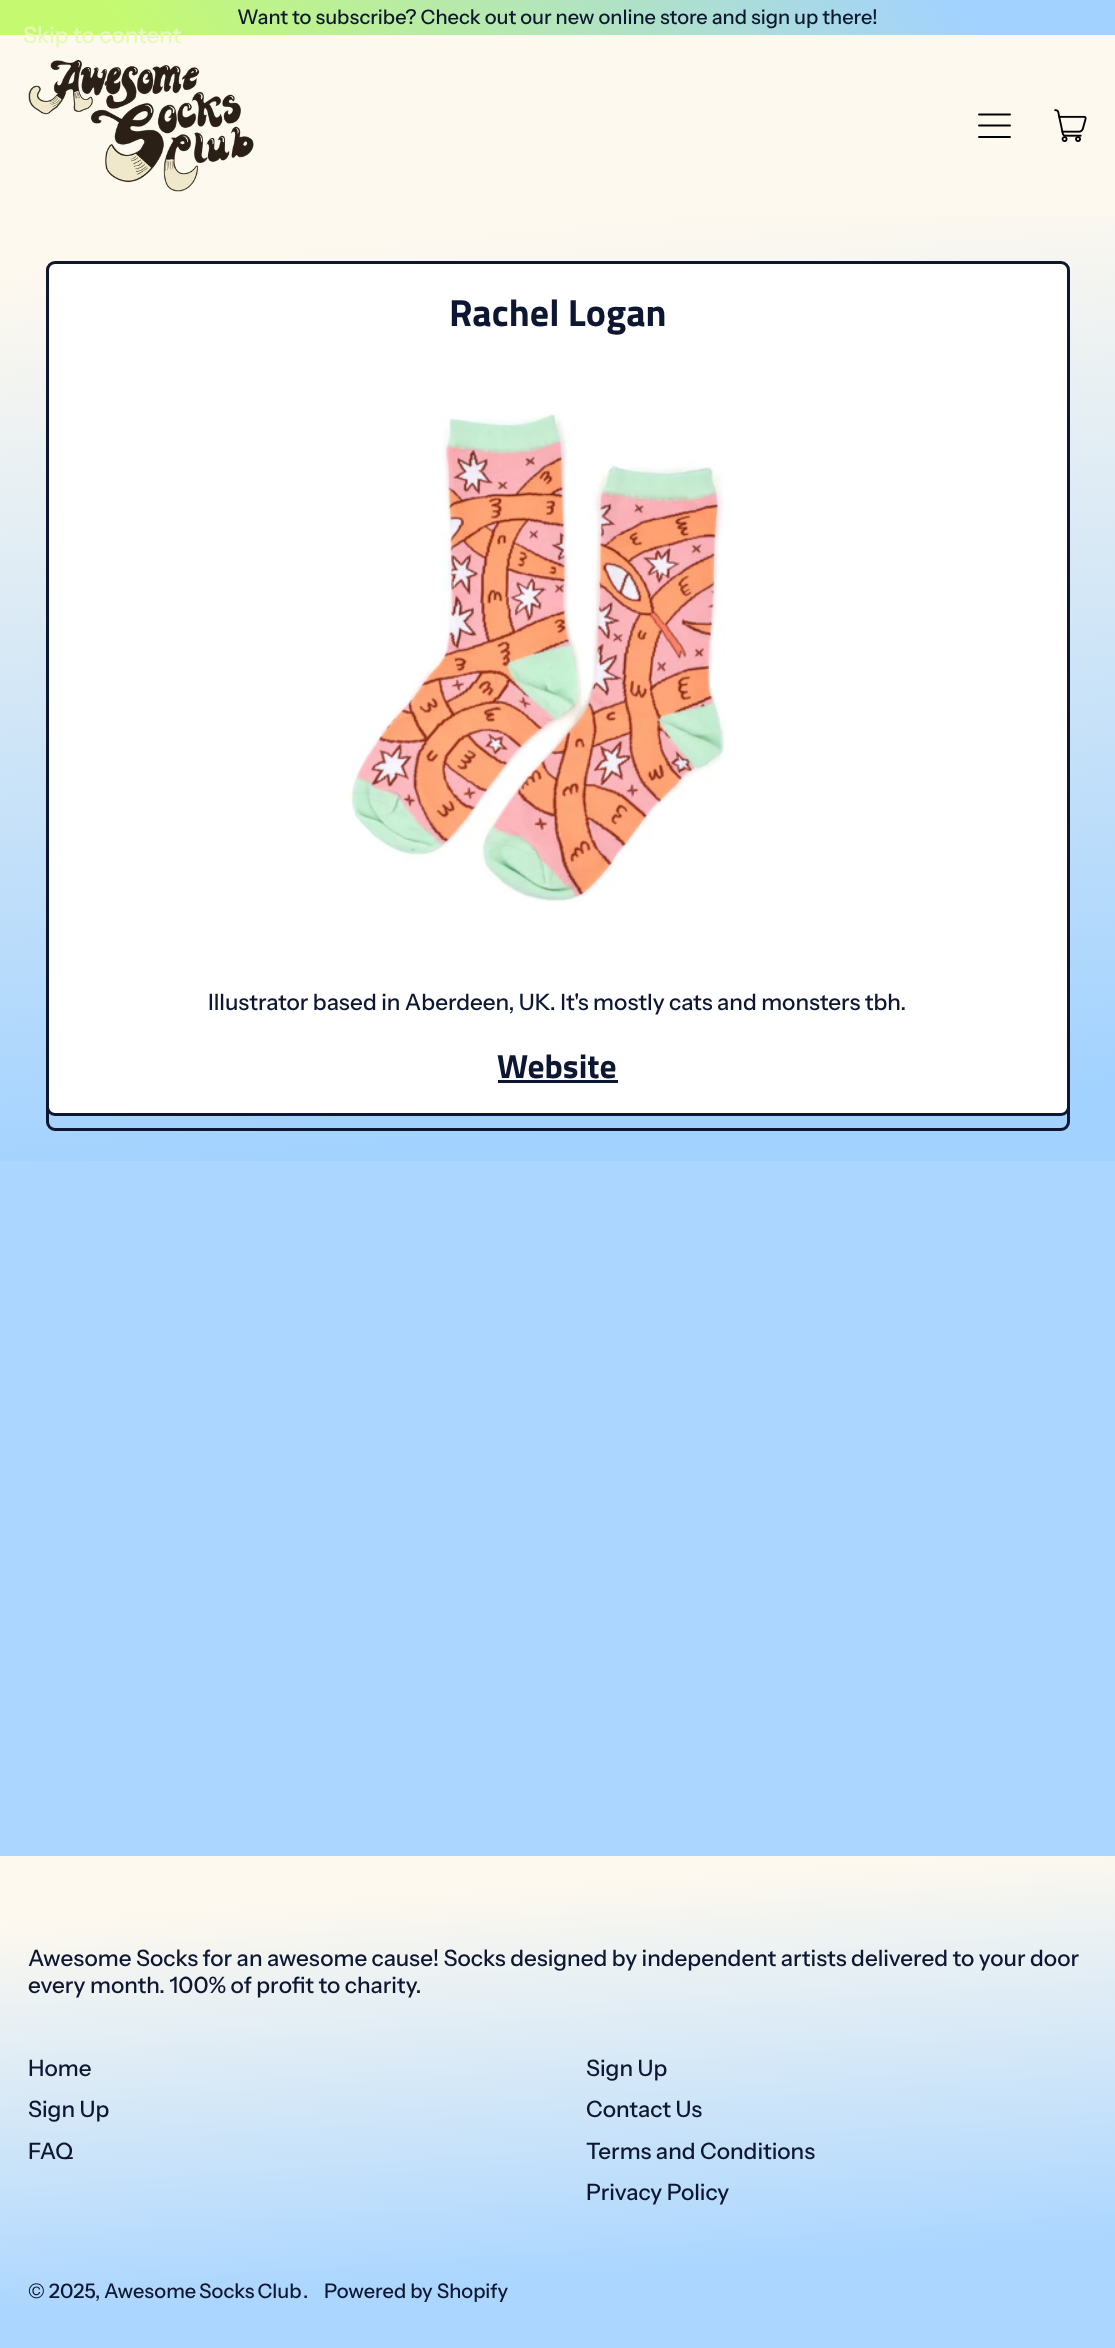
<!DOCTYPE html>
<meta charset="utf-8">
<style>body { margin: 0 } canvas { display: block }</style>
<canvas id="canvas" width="1115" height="2348"></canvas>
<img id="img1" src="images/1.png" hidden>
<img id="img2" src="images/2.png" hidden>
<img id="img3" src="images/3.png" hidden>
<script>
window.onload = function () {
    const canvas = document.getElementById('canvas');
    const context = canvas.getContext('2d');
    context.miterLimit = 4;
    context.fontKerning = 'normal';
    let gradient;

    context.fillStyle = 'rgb(171, 214, 255)';
    context.fillRect(0, 0, 1115, 2348);
    gradient = context.createLinearGradient(184, 289, 931, -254);
    gradient.addColorStop(0.11, 'rgb(197, 250, 112)');
    gradient.addColorStop(0.86, 'rgb(162, 210, 255)');
    context.fillStyle = gradient;
    context.fillRect(0, 0, 1115, 35);
    context.fillStyle = 'rgb(254, 249, 239)';
    context.fillRect(0, 35, 1115, 181);
    context.drawImage(document.getElementById('img1'), 28, 60, 226, 132);
    context.beginPath();
    context.moveTo(1010, 137);
    context.lineTo(979, 137);
    context.moveTo(1010, 125.5);
    context.lineTo(979, 125.5);
    context.moveTo(1010, 114.5);
    context.lineTo(979, 114.5);
    context.strokeStyle = 'rgb(0, 0, 0)';
    context.lineWidth = 1.9;
    context.lineCap = 'round';
    context.lineJoin = 'round';
    context.stroke();
    context.drawImage(document.getElementById('img2'), 1054, 109, 33, 33);
    gradient = context.createLinearGradient(512, 171, 603, 1206);
    gradient.addColorStop(0.05, 'rgb(254, 249, 239)');
    gradient.addColorStop(0.93, 'rgb(162, 210, 255)');
    context.fillStyle = gradient;
    context.fillRect(0, 216, 1115, 945);
    gradient = context.createLinearGradient(517, 235, 599, 1172);
    gradient.addColorStop(0.05, 'rgb(254, 249, 239)');
    gradient.addColorStop(0.93, 'rgb(162, 210, 255)');
    context.fillStyle = gradient;
    context.beginPath();
    context.roundRect(47.5, 277.5, 1021, 852, 7.5);
    context.fill();
    context.strokeStyle = 'rgb(14, 23, 50)';
    context.lineWidth = 3;
    context.lineJoin = 'miter';
    context.stroke();
    context.fillStyle = 'rgb(255, 255, 255)';
    context.beginPath();
    context.roundRect(47.5, 262.5, 1021, 852, 7.5);
    context.fill();
    context.stroke();
    context.drawImage(document.getElementById('img3'), 348, 413, 377, 489);
    context.fillStyle = 'rgb(14, 23, 50)';
    context.fillRect(498, 1080, 120, 3);
    gradient = context.createLinearGradient(538, 1819, 577, 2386);
    gradient.addColorStop(0.11, 'rgb(254, 249, 239)');
    gradient.addColorStop(0.81, 'rgb(171, 214, 255)');
    context.fillStyle = gradient;
    context.fillRect(0, 1856, 1115, 449);
    context.font = '500 20.05px Instrument Sans';
    context.fillStyle = 'rgb(14, 23, 50)';
    context.fillText('Want to subscribe? Check out our new online store and sign up there!', 237, 24);
    context.font = '500 22.5px Instrument Sans';
    context.fillStyle = 'rgb(230, 249, 186)';
    context.fillText('Skip to content', 23, 43);
    context.font = 'bold 38px Titillium Web';
    context.fillStyle = 'rgb(14, 23, 50)';
    context.fillText('Rachel Logan', 449, 326);
    context.font = '500 22.5px Instrument Sans';
    context.fillText('Illustrator based in Aberdeen, UK. It\'s mostly cats and monsters tbh.', 208, 1010);
    context.font = 'bold 33.5px Titillium Web';
    context.fillText('Website', 497, 1078);
    context.font = '500 22.5px Instrument Sans';
    context.fillText('Awesome Socks for an awesome cause! Socks designed by independent artists delivered to your door', 28, 1966);
    context.fillText('every month. 100% of profit to charity.', 28, 1993);
    context.fillText('Home', 28, 2076);
    context.fillText('Sign Up', 28, 2117);
    context.fillText('FAQ', 28, 2159);
    context.fillText('Sign Up', 586, 2076);
    context.fillText('Contact Us', 586, 2117);
    context.fillText('Terms and Conditions', 586, 2159);
    context.fillText('Privacy Policy', 586, 2200);
    context.font = '500 20.05px Instrument Sans';
    context.fillText('© 2025,', 28, 2298);
    context.wordSpacing = '-1px';
    context.fillText('Awesome Socks Club', 104, 2298);
    context.wordSpacing = '0px';
    context.fillText('.', 303, 2298);
    context.fillText('Powered by Shopify', 324, 2298);
};
</script>
